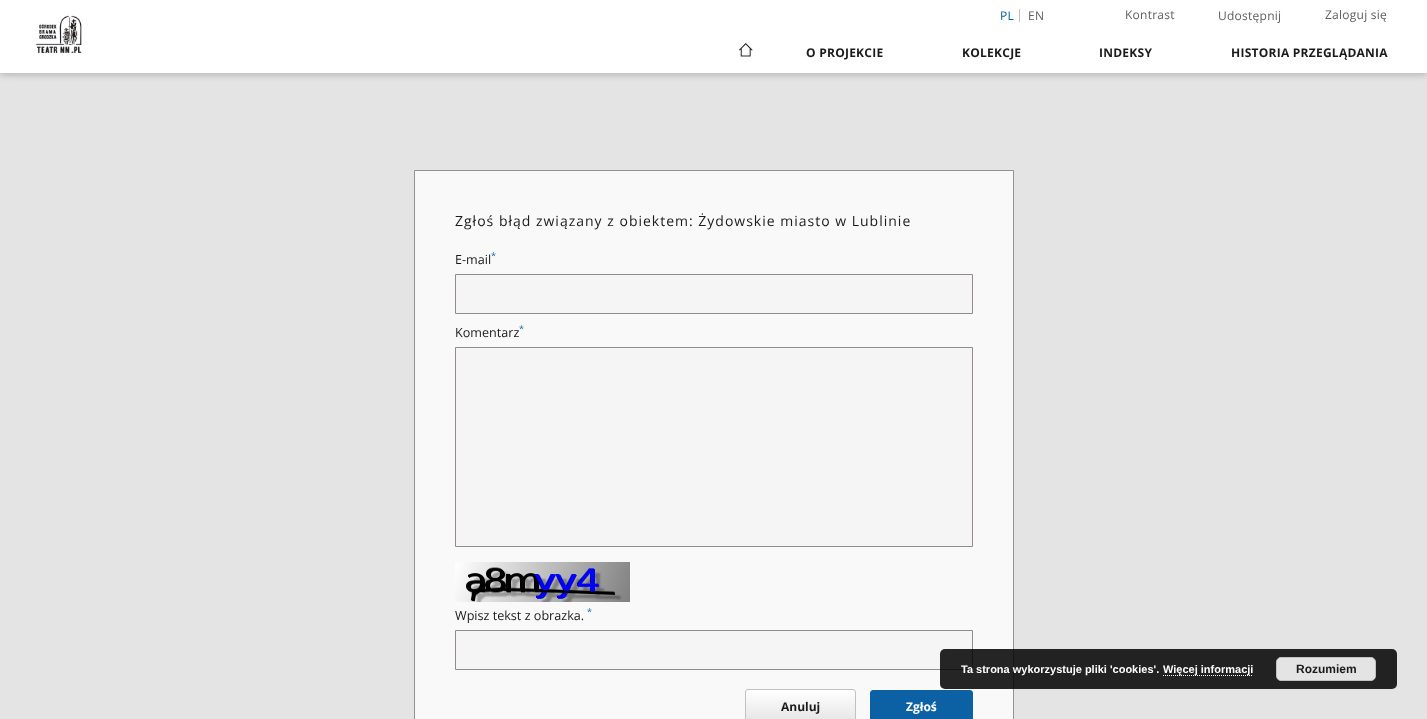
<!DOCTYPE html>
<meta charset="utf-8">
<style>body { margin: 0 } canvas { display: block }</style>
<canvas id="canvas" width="1427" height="719"></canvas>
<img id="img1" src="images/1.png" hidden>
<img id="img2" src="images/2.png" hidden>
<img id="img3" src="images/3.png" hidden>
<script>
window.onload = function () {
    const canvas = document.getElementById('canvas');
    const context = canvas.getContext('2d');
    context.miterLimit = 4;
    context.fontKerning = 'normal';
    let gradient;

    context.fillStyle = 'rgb(228, 228, 228)';
    context.fillRect(0, 0, 1427, 719);
    context.fillStyle = 'rgba(0, 0, 0, 0.08)';
    context.filter = 'blur(5px)';
    context.beginPath();
    context.rect(0, 1, 1427, 73);
    context.fill();
    context.filter = 'none';
    context.fillStyle = 'rgba(0, 0, 0, 0.06)';
    context.filter = 'blur(2.5px)';
    context.beginPath();
    context.rect(0, 4, 1427, 73);
    context.fill();
    context.filter = 'none';
    context.filter = 'blur(2px)';
    context.beginPath();
    context.rect(1, 3, 1425, 71);
    context.fill();
    context.filter = 'none';
    context.fillStyle = 'rgb(255, 255, 255)';
    context.fillRect(0, 0, 1427, 73);
    context.fillStyle = 'rgb(193, 193, 193)';
    context.fillRect(1019, 9, 1, 13);
    context.drawImage(document.getElementById('img1'), 35, 15, 47, 38);
    context.drawImage(document.getElementById('img2'), 739, 43, 14, 14);
    context.fillStyle = 'rgb(249, 249, 249)';
    context.beginPath();
    context.rect(414.5, 170.5, 599, 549);
    context.fill();
    context.strokeStyle = 'rgb(147, 147, 147)';
    context.stroke();
    context.fillStyle = 'rgb(245, 245, 245)';
    context.beginPath();
    context.rect(455.5, 274.5, 517, 39);
    context.fill();
    context.strokeStyle = 'rgb(147, 138, 138)';
    context.stroke();
    context.beginPath();
    context.rect(455.5, 347.5, 517, 199);
    context.fill();
    context.stroke();
    context.drawImage(document.getElementById('img3'), 455, 562, 175, 40);
    context.beginPath();
    context.rect(455.5, 630.5, 517, 39);
    context.fill();
    context.stroke();
    context.save();
    context.beginPath();
    context.roundRect(745, 689, 111, 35, 3);
    context.clip();
    gradient = context.createLinearGradient(801, 690, 801, 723);
    gradient.addColorStop(0, 'rgb(255, 255, 255)');
    gradient.addColorStop(1, 'rgb(228, 228, 228)');
    context.fillStyle = gradient;
    context.fillRect(745, 690, 111, 29);
    context.restore();
    context.beginPath();
    context.roundRect(745.5, 689.5, 110, 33, 2.5);
    context.strokeStyle = 'rgb(193, 193, 193)';
    context.stroke();
    context.fillStyle = 'rgb(12, 97, 165)';
    context.beginPath();
    context.roundRect(870.5, 690.5, 102, 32, 2.5);
    context.fill();
    context.strokeStyle = 'rgb(12, 97, 165)';
    context.stroke();
    context.fillStyle = 'rgba(0, 0, 0, 0.85)';
    context.beginPath();
    context.roundRect(940, 649, 457, 40, 5);
    context.fill();
    context.beginPath();
    context.moveTo(1163, 675.5);
    context.lineTo(1253, 675.5);
    context.strokeStyle = 'rgb(255, 255, 255)';
    context.setLineDash([1, 1]);
    context.stroke();
    context.fillStyle = 'rgb(228, 228, 228)';
    context.beginPath();
    context.roundRect(1276.5, 657.5, 99, 23, 4.5);
    context.fill();
    context.strokeStyle = 'rgb(193, 193, 193)';
    context.setLineDash([]);
    context.stroke();
    context.letterSpacing = '0.25px';
    context.font = '12px Open Sans';
    context.fillStyle = 'rgb(12, 97, 165)';
    context.fillText('PL', 1000, 20);
    context.fillStyle = 'rgb(96, 96, 96)';
    context.fillText('EN', 1028, 20);
    context.fillText('Kontrast', 1125, 19);
    context.fillText('Udostępnij', 1218, 20);
    context.fillText('Zaloguj się', 1325, 19);
    context.font = 'bold 12px Open Sans';
    context.fillStyle = 'rgb(26, 27, 28)';
    context.fillText('O PROJEKCIE', 806, 57);
    context.fillText('KOLEKCJE', 962, 57);
    context.fillText('INDEKSY', 1099, 57);
    context.fillText('HISTORIA PRZEGLĄDANIA', 1231, 57);
    context.letterSpacing = '1px';
    context.font = '14px Open Sans';
    context.fillText('Zgłoś błąd związany z obiektem: Żydowskie miasto w Lublinie', 455, 226);
    context.letterSpacing = '0px';
    context.font = '9px Open Sans';
    context.fillStyle = 'rgb(12, 97, 165)';
    context.fillText('*', 491, 259);
    context.font = '12.6px Open Sans';
    context.fillStyle = 'rgb(26, 27, 28)';
    context.fillText('E-mail', 455, 264);
    context.font = '9px Open Sans';
    context.fillStyle = 'rgb(12, 97, 165)';
    context.fillText('*', 519, 332);
    context.font = '12.6px Open Sans';
    context.fillStyle = 'rgb(26, 27, 28)';
    context.fillText('Komentarz', 455, 337);
    context.font = '9px Open Sans';
    context.fillStyle = 'rgb(12, 97, 165)';
    context.fillText('*', 587, 615);
    context.font = '12.6px Open Sans';
    context.fillStyle = 'rgb(26, 27, 28)';
    context.fillText('Wpisz tekst z obrazka.', 455, 620);
    context.font = 'bold 12px Open Sans';
    context.fillText('Anuluj', 781, 711);
    context.fillStyle = 'rgb(255, 255, 255)';
    context.fillText('Zgłoś', 906, 711);
    context.font = 'bold 11px Liberation Sans';
    context.fillText('Ta strona wykorzystuje pliki \'cookies\'.', 961, 673);
    context.fillText('Więcej informacji', 1163, 673);
    context.font = 'bold 12px Liberation Sans';
    context.fillStyle = 'rgb(26, 27, 28)';
    context.fillText('Rozumiem', 1296, 673);
};
</script>
